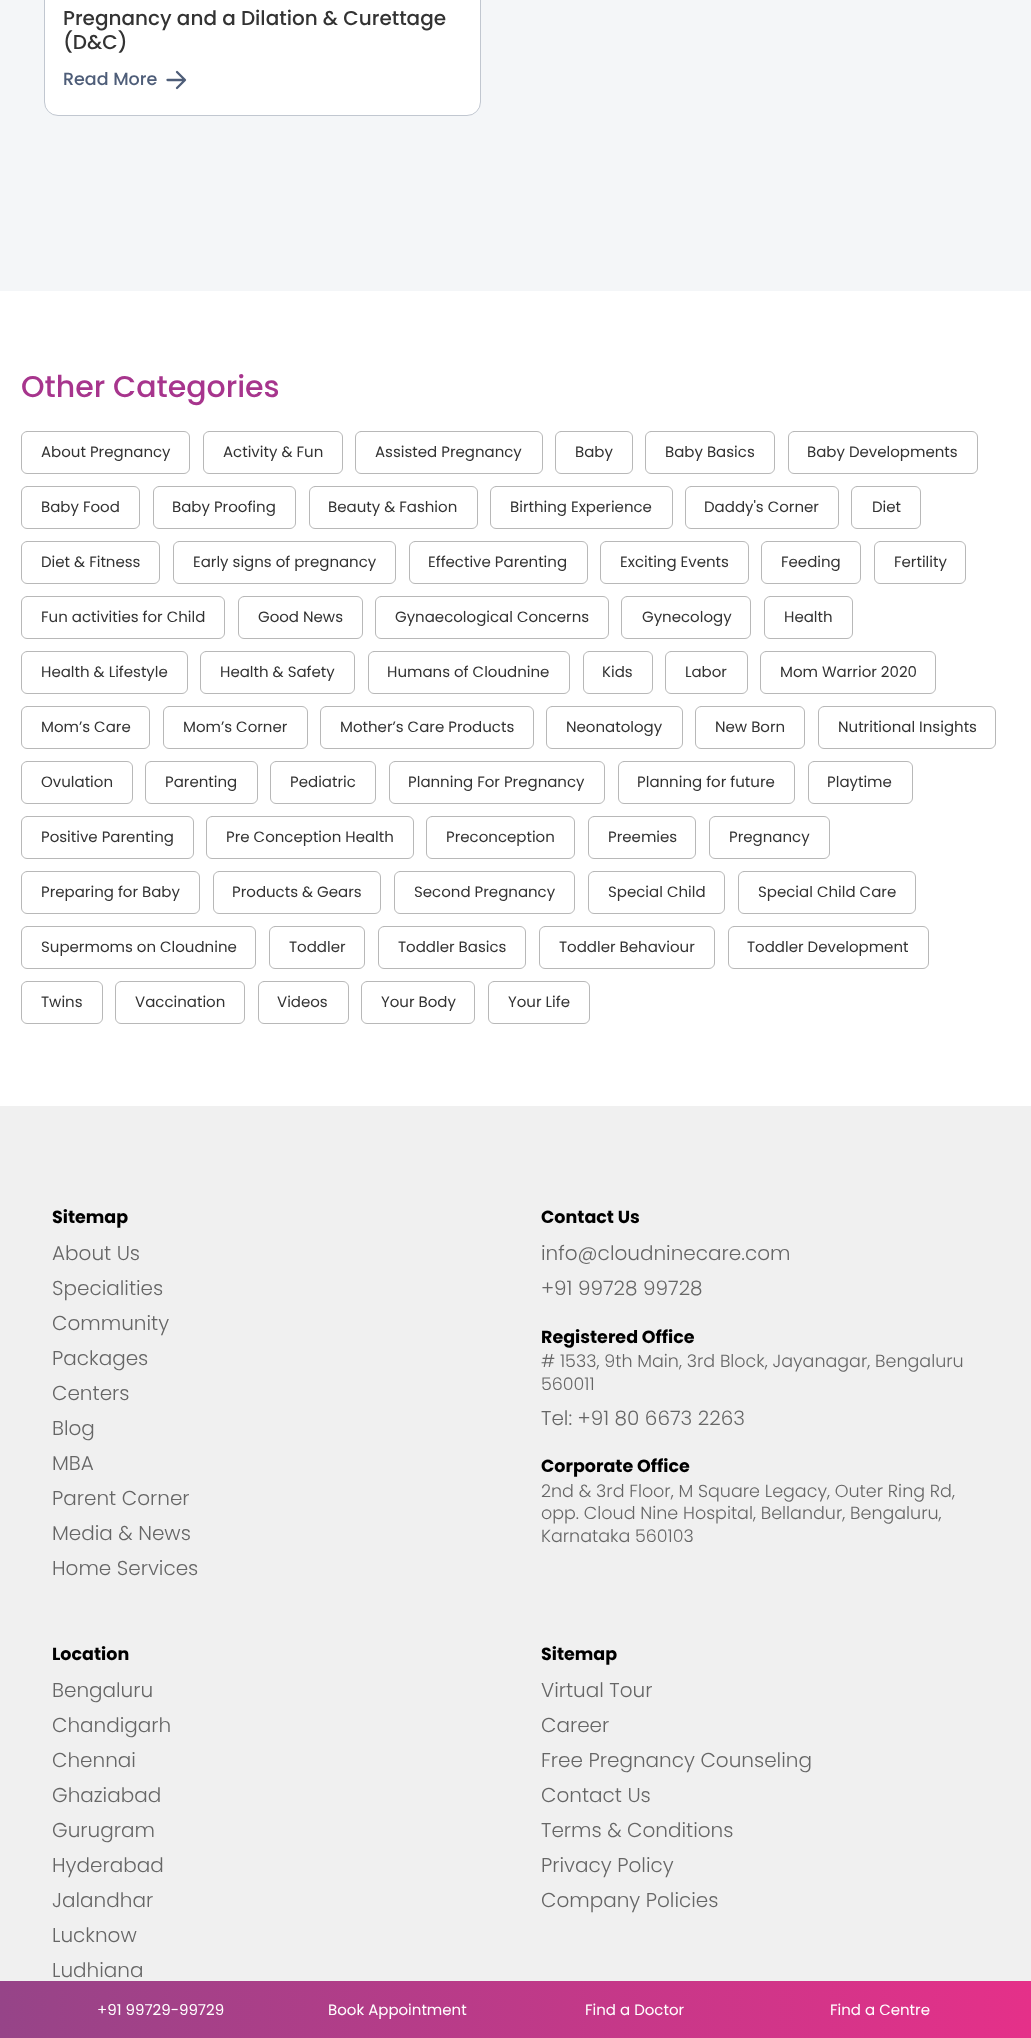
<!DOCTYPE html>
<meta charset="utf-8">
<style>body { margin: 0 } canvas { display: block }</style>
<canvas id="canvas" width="1031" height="2038"></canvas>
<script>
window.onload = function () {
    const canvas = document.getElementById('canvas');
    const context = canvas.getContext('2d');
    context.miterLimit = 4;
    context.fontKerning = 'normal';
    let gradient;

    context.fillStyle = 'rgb(255, 255, 255)';
    context.fillRect(0, 0, 1031, 2038);
    context.fillStyle = 'rgb(244, 246, 248)';
    context.fillRect(0, 0, 1031, 291);
    context.fillStyle = 'rgb(255, 255, 255)';
    context.beginPath();
    context.roundRect(44.5, -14.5, 436, 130, 13.5);
    context.fill();
    context.strokeStyle = 'rgb(193, 199, 208)';
    context.stroke();
    context.beginPath();
    context.moveTo(177, 72);
    context.lineTo(185, 80);
    context.lineTo(177, 88);
    context.moveTo(184, 80);
    context.lineTo(167.5, 80);
    context.strokeStyle = 'rgb(78, 93, 120)';
    context.lineWidth = 2.3;
    context.lineCap = 'round';
    context.lineJoin = 'round';
    context.stroke();
    context.beginPath();
    context.roundRect(21.5, 431.5, 168, 42, 5.5);
    context.strokeStyle = 'rgb(184, 184, 184)';
    context.lineWidth = 1;
    context.lineJoin = 'miter';
    context.stroke();
    context.beginPath();
    context.roundRect(203.5, 431.5, 139, 42, 5.5);
    context.stroke();
    context.beginPath();
    context.roundRect(355.5, 431.5, 187, 42, 5.5);
    context.stroke();
    context.beginPath();
    context.roundRect(555.5, 431.5, 77, 42, 5.5);
    context.stroke();
    context.beginPath();
    context.roundRect(645.5, 431.5, 129, 42, 5.5);
    context.stroke();
    context.beginPath();
    context.roundRect(788.5, 431.5, 189, 42, 5.5);
    context.stroke();
    context.beginPath();
    context.roundRect(21.5, 486.5, 118, 42, 5.5);
    context.stroke();
    context.beginPath();
    context.roundRect(153.5, 486.5, 142, 42, 5.5);
    context.stroke();
    context.beginPath();
    context.roundRect(309.5, 486.5, 168, 42, 5.5);
    context.stroke();
    context.beginPath();
    context.roundRect(490.5, 486.5, 182, 42, 5.5);
    context.stroke();
    context.beginPath();
    context.roundRect(685.5, 486.5, 153, 42, 5.5);
    context.stroke();
    context.beginPath();
    context.roundRect(851.5, 486.5, 69, 42, 5.5);
    context.stroke();
    context.beginPath();
    context.roundRect(21.5, 541.5, 138, 42, 5.5);
    context.stroke();
    context.beginPath();
    context.roundRect(173.5, 541.5, 222, 42, 5.5);
    context.stroke();
    context.beginPath();
    context.roundRect(409.5, 541.5, 178, 42, 5.5);
    context.stroke();
    context.beginPath();
    context.roundRect(600.5, 541.5, 148, 42, 5.5);
    context.stroke();
    context.beginPath();
    context.roundRect(761.5, 541.5, 99, 42, 5.5);
    context.stroke();
    context.beginPath();
    context.roundRect(874.5, 541.5, 91, 42, 5.5);
    context.stroke();
    context.beginPath();
    context.roundRect(21.5, 596.5, 203, 42, 5.5);
    context.stroke();
    context.beginPath();
    context.roundRect(238.5, 596.5, 124, 42, 5.5);
    context.stroke();
    context.beginPath();
    context.roundRect(375.5, 596.5, 233, 42, 5.5);
    context.stroke();
    context.beginPath();
    context.roundRect(621.5, 596.5, 129, 42, 5.5);
    context.stroke();
    context.beginPath();
    context.roundRect(764.5, 596.5, 88, 42, 5.5);
    context.stroke();
    context.beginPath();
    context.roundRect(21.5, 651.5, 166, 42, 5.5);
    context.stroke();
    context.beginPath();
    context.roundRect(200.5, 651.5, 154, 42, 5.5);
    context.stroke();
    context.beginPath();
    context.roundRect(368.5, 651.5, 201, 42, 5.5);
    context.stroke();
    context.beginPath();
    context.roundRect(583.5, 651.5, 69, 42, 5.5);
    context.stroke();
    context.beginPath();
    context.roundRect(665.5, 651.5, 82, 42, 5.5);
    context.stroke();
    context.beginPath();
    context.roundRect(760.5, 651.5, 175, 42, 5.5);
    context.stroke();
    context.beginPath();
    context.roundRect(21.5, 706.5, 128, 42, 5.5);
    context.stroke();
    context.beginPath();
    context.roundRect(163.5, 706.5, 144, 42, 5.5);
    context.stroke();
    context.beginPath();
    context.roundRect(320.5, 706.5, 213, 42, 5.5);
    context.stroke();
    context.beginPath();
    context.roundRect(546.5, 706.5, 136, 42, 5.5);
    context.stroke();
    context.beginPath();
    context.roundRect(695.5, 706.5, 109, 42, 5.5);
    context.stroke();
    context.beginPath();
    context.roundRect(818.5, 706.5, 177, 42, 5.5);
    context.stroke();
    context.beginPath();
    context.roundRect(21.5, 761.5, 111, 42, 5.5);
    context.stroke();
    context.beginPath();
    context.roundRect(145.5, 761.5, 112, 42, 5.5);
    context.stroke();
    context.beginPath();
    context.roundRect(270.5, 761.5, 105, 42, 5.5);
    context.stroke();
    context.beginPath();
    context.roundRect(389.5, 761.5, 215, 42, 5.5);
    context.stroke();
    context.beginPath();
    context.roundRect(618.5, 761.5, 176, 42, 5.5);
    context.stroke();
    context.beginPath();
    context.roundRect(808.5, 761.5, 104, 42, 5.5);
    context.stroke();
    context.beginPath();
    context.roundRect(21.5, 816.5, 172, 42, 5.5);
    context.stroke();
    context.beginPath();
    context.roundRect(206.5, 816.5, 207, 42, 5.5);
    context.stroke();
    context.beginPath();
    context.roundRect(426.5, 816.5, 148, 42, 5.5);
    context.stroke();
    context.beginPath();
    context.roundRect(588.5, 816.5, 107, 42, 5.5);
    context.stroke();
    context.beginPath();
    context.roundRect(709.5, 816.5, 120, 42, 5.5);
    context.stroke();
    context.beginPath();
    context.roundRect(21.5, 871.5, 178, 42, 5.5);
    context.stroke();
    context.beginPath();
    context.roundRect(213.5, 871.5, 167, 42, 5.5);
    context.stroke();
    context.beginPath();
    context.roundRect(394.5, 871.5, 180, 42, 5.5);
    context.stroke();
    context.beginPath();
    context.roundRect(588.5, 871.5, 136, 42, 5.5);
    context.stroke();
    context.beginPath();
    context.roundRect(738.5, 871.5, 177, 42, 5.5);
    context.stroke();
    context.beginPath();
    context.roundRect(21.5, 926.5, 234, 42, 5.5);
    context.stroke();
    context.beginPath();
    context.roundRect(269.5, 926.5, 95, 42, 5.5);
    context.stroke();
    context.beginPath();
    context.roundRect(378.5, 926.5, 147, 42, 5.5);
    context.stroke();
    context.beginPath();
    context.roundRect(539.5, 926.5, 175, 42, 5.5);
    context.stroke();
    context.beginPath();
    context.roundRect(728.5, 926.5, 200, 42, 5.5);
    context.stroke();
    context.beginPath();
    context.roundRect(21.5, 981.5, 81, 42, 5.5);
    context.stroke();
    context.beginPath();
    context.roundRect(115.5, 981.5, 129, 42, 5.5);
    context.stroke();
    context.beginPath();
    context.roundRect(258.5, 981.5, 90, 42, 5.5);
    context.stroke();
    context.beginPath();
    context.roundRect(361.5, 981.5, 113, 42, 5.5);
    context.stroke();
    context.beginPath();
    context.roundRect(488.5, 981.5, 101, 42, 5.5);
    context.stroke();
    context.fillStyle = 'rgb(240, 240, 240)';
    context.fillRect(0, 1106, 1031, 875);
    gradient = context.createLinearGradient(0, 2010, 1031, 2010);
    gradient.addColorStop(0, 'rgb(150, 68, 136)');
    gradient.addColorStop(1, 'rgb(229, 48, 137)');
    context.fillStyle = gradient;
    context.fillRect(0, 1981, 1031, 57);
    context.font = '500 20px Poppins';
    context.fillStyle = 'rgb(51, 51, 51)';
    context.fillText('Pregnancy and a Dilation & Curettage', 63, 25);
    context.fillText('(D&C)', 63, 49);
    context.font = '500 17.5px Poppins';
    context.fillStyle = 'rgb(78, 93, 120)';
    context.fillText('Read More', 63, 85);
    context.font = '500 30px Poppins';
    context.fillStyle = 'rgb(167, 53, 141)';
    context.fillText('Other Categories', 21, 397);
    context.font = '15px Poppins';
    context.fillStyle = 'rgb(51, 51, 51)';
    context.fillText('About Pregnancy', 41, 457);
    context.fillText('Activity & Fun', 223, 457);
    context.fillText('Assisted Pregnancy', 375, 457);
    context.fillText('Baby', 575, 457);
    context.fillText('Baby Basics', 665, 457);
    context.fillText('Baby Developments', 807, 457);
    context.fillText('Baby Food', 41, 512);
    context.fillText('Baby Proofing', 172, 512);
    context.fillText('Beauty & Fashion', 328, 512);
    context.fillText('Birthing Experience', 510, 512);
    context.fillText('Daddy\'s Corner', 704, 512);
    context.fillText('Diet', 872, 512);
    context.fillText('Diet & Fitness', 41, 567);
    context.fillText('Early signs of pregnancy', 193, 567);
    context.fillText('Effective Parenting', 428, 567);
    context.fillText('Exciting Events', 620, 567);
    context.fillText('Feeding', 781, 567);
    context.fillText('Fertility', 894, 567);
    context.fillText('Fun activities for Child', 41, 622);
    context.fillText('Good News', 258, 622);
    context.fillText('Gynaecological Concerns', 395, 622);
    context.fillText('Gynecology', 642, 622);
    context.fillText('Health', 784, 622);
    context.fillText('Health & Lifestyle', 41, 677);
    context.fillText('Health & Safety', 220, 677);
    context.fillText('Humans of Cloudnine', 387, 677);
    context.fillText('Kids', 602, 677);
    context.fillText('Labor', 685, 677);
    context.fillText('Mom Warrior 2020', 780, 677);
    context.fillText('Mom’s Care', 41, 732);
    context.fillText('Mom’s Corner', 183, 732);
    context.fillText('Mother’s Care Products', 340, 732);
    context.fillText('Neonatology', 566, 732);
    context.fillText('New Born', 715, 732);
    context.fillText('Nutritional Insights', 838, 732);
    context.fillText('Ovulation', 41, 787);
    context.fillText('Parenting', 165, 787);
    context.fillText('Pediatric', 290, 787);
    context.fillText('Planning For Pregnancy', 408, 787);
    context.fillText('Planning for future', 637, 787);
    context.fillText('Playtime', 827, 787);
    context.fillText('Positive Parenting', 41, 842);
    context.fillText('Pre Conception Health', 226, 842);
    context.fillText('Preconception', 446, 842);
    context.fillText('Preemies', 608, 842);
    context.fillText('Pregnancy', 729, 842);
    context.fillText('Preparing for Baby', 41, 897);
    context.fillText('Products & Gears', 232, 897);
    context.fillText('Second Pregnancy', 414, 897);
    context.fillText('Special Child', 608, 897);
    context.fillText('Special Child Care', 758, 897);
    context.fillText('Supermoms on Cloudnine', 41, 952);
    context.fillText('Toddler', 289, 952);
    context.fillText('Toddler Basics', 398, 952);
    context.fillText('Toddler Behaviour', 559, 952);
    context.fillText('Toddler Development', 747, 952);
    context.fillText('Twins', 41, 1007);
    context.fillText('Vaccination', 135, 1007);
    context.fillText('Videos', 277, 1007);
    context.fillText('Your Body', 381, 1007);
    context.fillText('Your Life', 508, 1007);
    context.font = 'bold 17.5px Poppins';
    context.fillStyle = 'rgb(0, 0, 0)';
    context.fillText('Sitemap', 52, 1223);
    context.font = '300 20px Poppins';
    context.fillStyle = 'rgb(102, 102, 102)';
    context.fillText('About Us', 52, 1260);
    context.fillText('Specialities', 52, 1295);
    context.fillText('Community', 52, 1330);
    context.fillText('Packages', 52, 1365);
    context.fillText('Centers', 52, 1400);
    context.fillText('Blog', 52, 1435);
    context.fillText('MBA', 52, 1470);
    context.fillText('Parent Corner', 52, 1505);
    context.fillText('Media & News', 52, 1540);
    context.fillText('Home Services', 52, 1575);
    context.font = 'bold 17.5px Poppins';
    context.fillStyle = 'rgb(0, 0, 0)';
    context.fillText('Contact Us', 541, 1223);
    context.font = '300 20px Poppins';
    context.fillStyle = 'rgb(102, 102, 102)';
    context.fillText('info@cloudninecare.com', 541, 1260);
    context.fillText('+91 99728 99728', 541, 1295);
    context.font = 'bold 17.5px Poppins';
    context.fillStyle = 'rgb(0, 0, 0)';
    context.fillText('Registered Office', 541, 1343);
    context.font = '300 17.5px Poppins';
    context.fillStyle = 'rgb(102, 102, 102)';
    context.fillText('# 1533, 9th Main, 3rd Block, Jayanagar, Bengaluru', 541, 1367);
    context.fillText('560011', 541, 1390);
    context.font = '300 20px Poppins';
    context.fillText('Tel: +91 80 6673 2263', 541, 1425);
    context.font = 'bold 17.5px Poppins';
    context.fillStyle = 'rgb(0, 0, 0)';
    context.fillText('Corporate Office', 541, 1472);
    context.font = '300 17.5px Poppins';
    context.fillStyle = 'rgb(102, 102, 102)';
    context.fillText('2nd & 3rd Floor, M Square Legacy, Outer Ring Rd,', 541, 1497);
    context.fillText('opp. Cloud Nine Hospital, Bellandur, Bengaluru,', 541, 1519);
    context.fillText('Karnataka 560103', 541, 1542);
    context.font = 'bold 17.5px Poppins';
    context.fillStyle = 'rgb(0, 0, 0)';
    context.fillText('Location', 52, 1660);
    context.font = '300 20px Poppins';
    context.fillStyle = 'rgb(102, 102, 102)';
    context.fillText('Bengaluru', 52, 1697);
    context.fillText('Chandigarh', 52, 1732);
    context.fillText('Chennai', 52, 1767);
    context.fillText('Ghaziabad', 52, 1802);
    context.fillText('Gurugram', 52, 1837);
    context.fillText('Hyderabad', 52, 1872);
    context.fillText('Jalandhar', 52, 1907);
    context.fillText('Lucknow', 52, 1942);
    context.fillText('Ludhiana', 52, 1977);
    context.font = 'bold 17.5px Poppins';
    context.fillStyle = 'rgb(0, 0, 0)';
    context.fillText('Sitemap', 541, 1660);
    context.font = '300 20px Poppins';
    context.fillStyle = 'rgb(102, 102, 102)';
    context.fillText('Virtual Tour', 541, 1697);
    context.fillText('Career', 541, 1732);
    context.fillText('Free Pregnancy Counseling', 541, 1767);
    context.fillText('Contact Us', 541, 1802);
    context.fillText('Terms & Conditions', 541, 1837);
    context.fillText('Privacy Policy', 541, 1872);
    context.fillText('Company Policies', 541, 1907);
    context.font = '15px Poppins';
    context.fillStyle = 'rgb(255, 255, 255)';
    context.fillText('+91 99729-99729', 97, 2015);
    context.fillText('Book Appointment', 328, 2015);
    context.fillText('Find a Doctor', 585, 2015);
    context.fillText('Find a Centre', 830, 2015);
};
</script>
